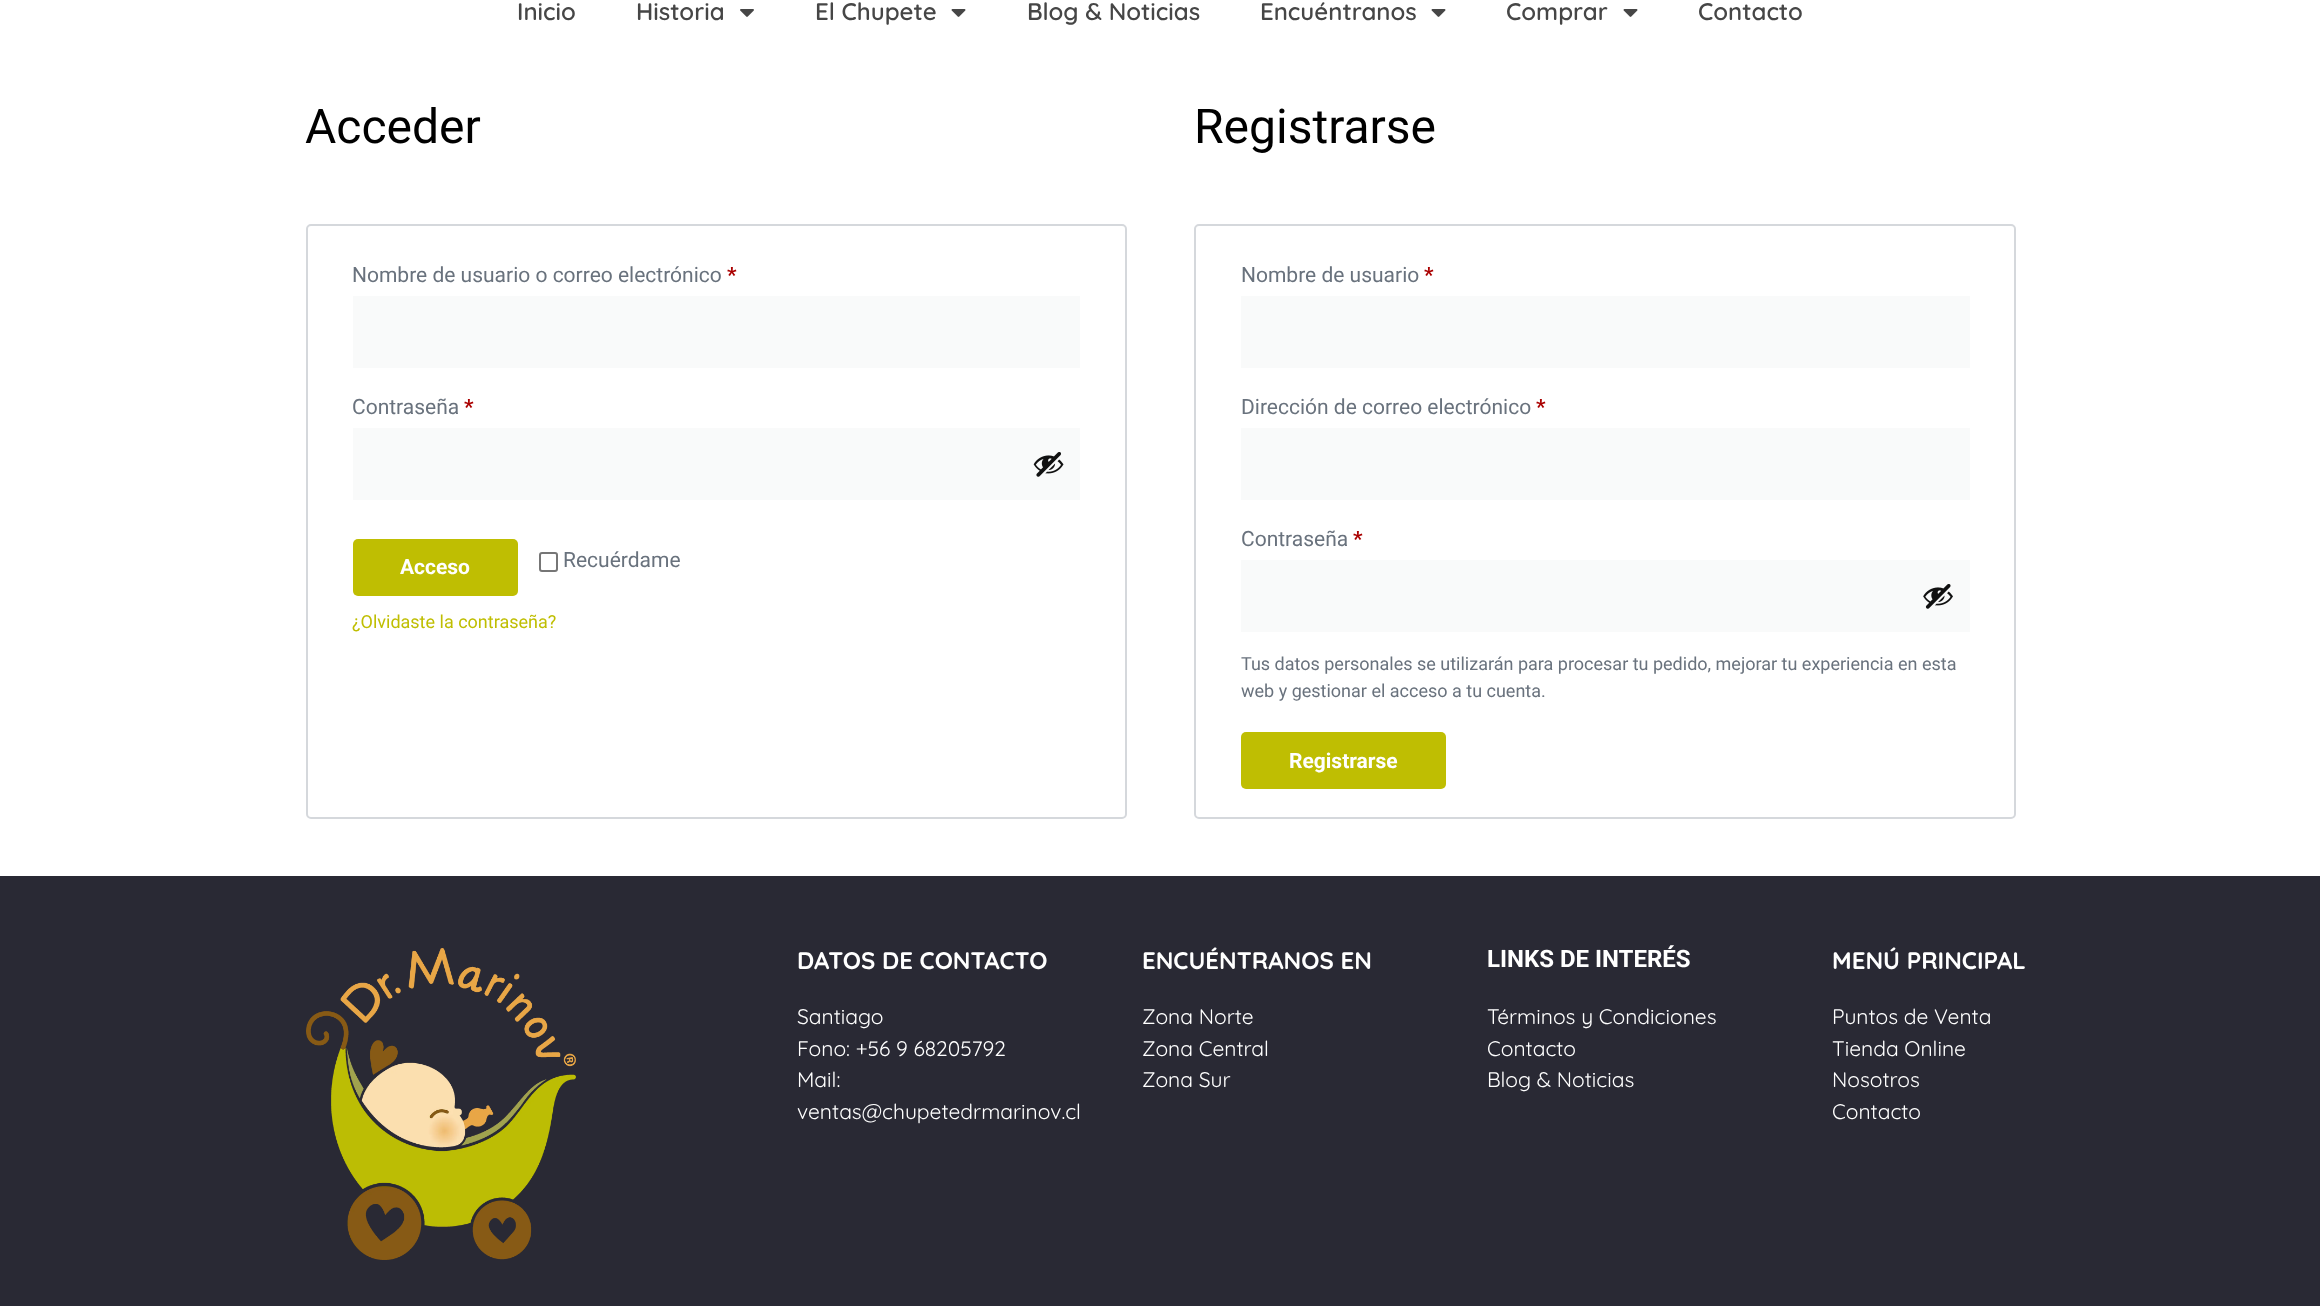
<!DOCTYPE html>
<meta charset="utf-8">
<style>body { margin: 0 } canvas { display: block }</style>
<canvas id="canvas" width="2320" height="1306"></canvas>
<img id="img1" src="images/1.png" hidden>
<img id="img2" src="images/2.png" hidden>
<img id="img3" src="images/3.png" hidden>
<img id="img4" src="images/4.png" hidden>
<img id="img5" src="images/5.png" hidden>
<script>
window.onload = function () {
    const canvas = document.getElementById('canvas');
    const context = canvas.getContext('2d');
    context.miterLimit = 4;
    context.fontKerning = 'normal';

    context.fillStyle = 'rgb(255, 255, 255)';
    context.fillRect(0, 0, 2320, 1306);
    context.drawImage(document.getElementById('img1'), 740, 9, 14, 8);
    context.drawImage(document.getElementById('img2'), 951, 9, 15, 8);
    context.drawImage(document.getElementById('img2'), 1431, 9, 15, 8);
    context.drawImage(document.getElementById('img2'), 1623, 9, 15, 8);
    context.beginPath();
    context.roundRect(307, 225, 819, 593, 4);
    context.strokeStyle = 'rgb(213, 216, 220)';
    context.lineWidth = 2;
    context.stroke();
    context.fillStyle = 'rgb(249, 250, 250)';
    context.fillRect(353, 296, 727, 72);
    context.fillRect(353, 428, 727, 72);
    context.drawImage(document.getElementById('img3'), 1033, 452, 31, 25);
    context.fillStyle = 'rgb(191, 190, 2)';
    context.beginPath();
    context.roundRect(353, 539, 165, 57, 5);
    context.fill();
    context.beginPath();
    context.roundRect(540, 553, 17, 18, 2);
    context.strokeStyle = 'rgb(118, 118, 118)';
    context.stroke();
    context.beginPath();
    context.roundRect(1195, 225, 820, 593, 4);
    context.strokeStyle = 'rgb(213, 216, 220)';
    context.stroke();
    context.fillStyle = 'rgb(249, 250, 250)';
    context.fillRect(1241, 296, 729, 72);
    context.fillRect(1241, 428, 729, 72);
    context.fillRect(1241, 560, 729, 72);
    context.drawImage(document.getElementById('img4'), 1923, 584, 30, 25);
    context.fillStyle = 'rgb(191, 190, 2)';
    context.beginPath();
    context.roundRect(1241, 732, 205, 57, 5);
    context.fill();
    context.fillStyle = 'rgb(41, 41, 52)';
    context.fillRect(0, 876, 2320, 430);
    context.drawImage(document.getElementById('img5'), 306, 948, 270, 312);
    context.font = '600 24px Quicksand';
    context.fillStyle = 'rgb(70, 70, 70)';
    context.fillText('Inicio', 517, 20);
    context.fillText('Historia', 636, 20);
    context.fillText('El Chupete', 815, 20);
    context.fillText('Blog & Noticias', 1027, 20);
    context.fillText('Encuéntranos', 1260, 20);
    context.fillText('Comprar', 1506, 20);
    context.fillText('Contacto', 1698, 20);
    context.font = '48px Roboto';
    context.fillStyle = 'rgb(0, 0, 0)';
    context.fillText('Acceder', 305, 143);
    context.font = '21px Roboto';
    context.fillStyle = 'rgb(105, 114, 125)';
    context.fillText('Nombre de usuario o correo electrónico', 352, 282);
    context.font = 'bold 21px Roboto';
    context.fillStyle = 'rgb(170, 0, 0)';
    context.fillText('*', 727, 282);
    context.font = '21px Roboto';
    context.fillStyle = 'rgb(105, 114, 125)';
    context.fillText('Contraseña', 352, 414);
    context.font = 'bold 21px Roboto';
    context.fillStyle = 'rgb(170, 0, 0)';
    context.fillText('*', 464, 414);
    context.fillStyle = 'rgb(255, 255, 255)';
    context.fillText('Acceso', 400, 574);
    context.font = '21px Roboto';
    context.fillStyle = 'rgb(105, 114, 125)';
    context.fillText('Recuérdame', 563, 567);
    context.font = '18px Roboto';
    context.fillStyle = 'rgb(191, 190, 2)';
    context.fillText('¿Olvidaste la contraseña?', 352, 628);
    context.font = '48px Roboto';
    context.fillStyle = 'rgb(0, 0, 0)';
    context.fillText('Registrarse', 1194, 143);
    context.font = '21px Roboto';
    context.fillStyle = 'rgb(105, 114, 125)';
    context.fillText('Nombre de usuario', 1241, 282);
    context.font = 'bold 21px Roboto';
    context.fillStyle = 'rgb(170, 0, 0)';
    context.fillText('*', 1424, 282);
    context.font = '21px Roboto';
    context.fillStyle = 'rgb(105, 114, 125)';
    context.fillText('Dirección de correo electrónico', 1241, 414);
    context.font = 'bold 21px Roboto';
    context.fillStyle = 'rgb(170, 0, 0)';
    context.fillText('*', 1536, 414);
    context.font = '21px Roboto';
    context.fillStyle = 'rgb(105, 114, 125)';
    context.fillText('Contraseña', 1241, 546);
    context.font = 'bold 21px Roboto';
    context.fillStyle = 'rgb(170, 0, 0)';
    context.fillText('*', 1353, 546);
    context.font = '18px Roboto';
    context.fillStyle = 'rgb(105, 114, 125)';
    context.fillText('Tus datos personales se utilizarán para procesar tu pedido, mejorar tu experiencia en esta', 1241, 670);
    context.fillText('web y gestionar el acceso a tu cuenta.', 1241, 697);
    context.font = 'bold 21px Roboto';
    context.fillStyle = 'rgb(255, 255, 255)';
    context.fillText('Registrarse', 1289, 768);
    context.font = 'bold 24px Quicksand';
    context.fillText('DATOS DE CONTACTO', 797, 969);
    context.font = '21px Quicksand';
    context.fillText('Santiago', 797, 1024);
    context.fillText('Fono: +56 9 68205792', 797, 1056);
    context.fillText('Mail:', 797, 1087);
    context.fillText('ventas@chupetedrmarinov.cl', 797, 1119);
    context.font = 'bold 24px Quicksand';
    context.fillText('ENCUÉNTRANOS EN', 1142, 969);
    context.font = '21px Quicksand';
    context.fillText('Zona Norte', 1142, 1024);
    context.fillText('Zona Central', 1142, 1056);
    context.fillText('Zona Sur', 1142, 1087);
    context.font = 'bold 24px Roboto';
    context.fillText('LINKS DE INTERÉS', 1487, 967);
    context.font = '21px Quicksand';
    context.fillText('Términos y Condiciones', 1487, 1024);
    context.fillText('Contacto', 1487, 1056);
    context.fillText('Blog & Noticias', 1487, 1087);
    context.font = 'bold 24px Quicksand';
    context.fillText('MENÚ PRINCIPAL', 1832, 969);
    context.font = '21px Quicksand';
    context.fillText('Puntos de Venta', 1832, 1024);
    context.fillText('Tienda Online', 1832, 1056);
    context.fillText('Nosotros', 1832, 1087);
    context.fillText('Contacto', 1832, 1119);
};
</script>
